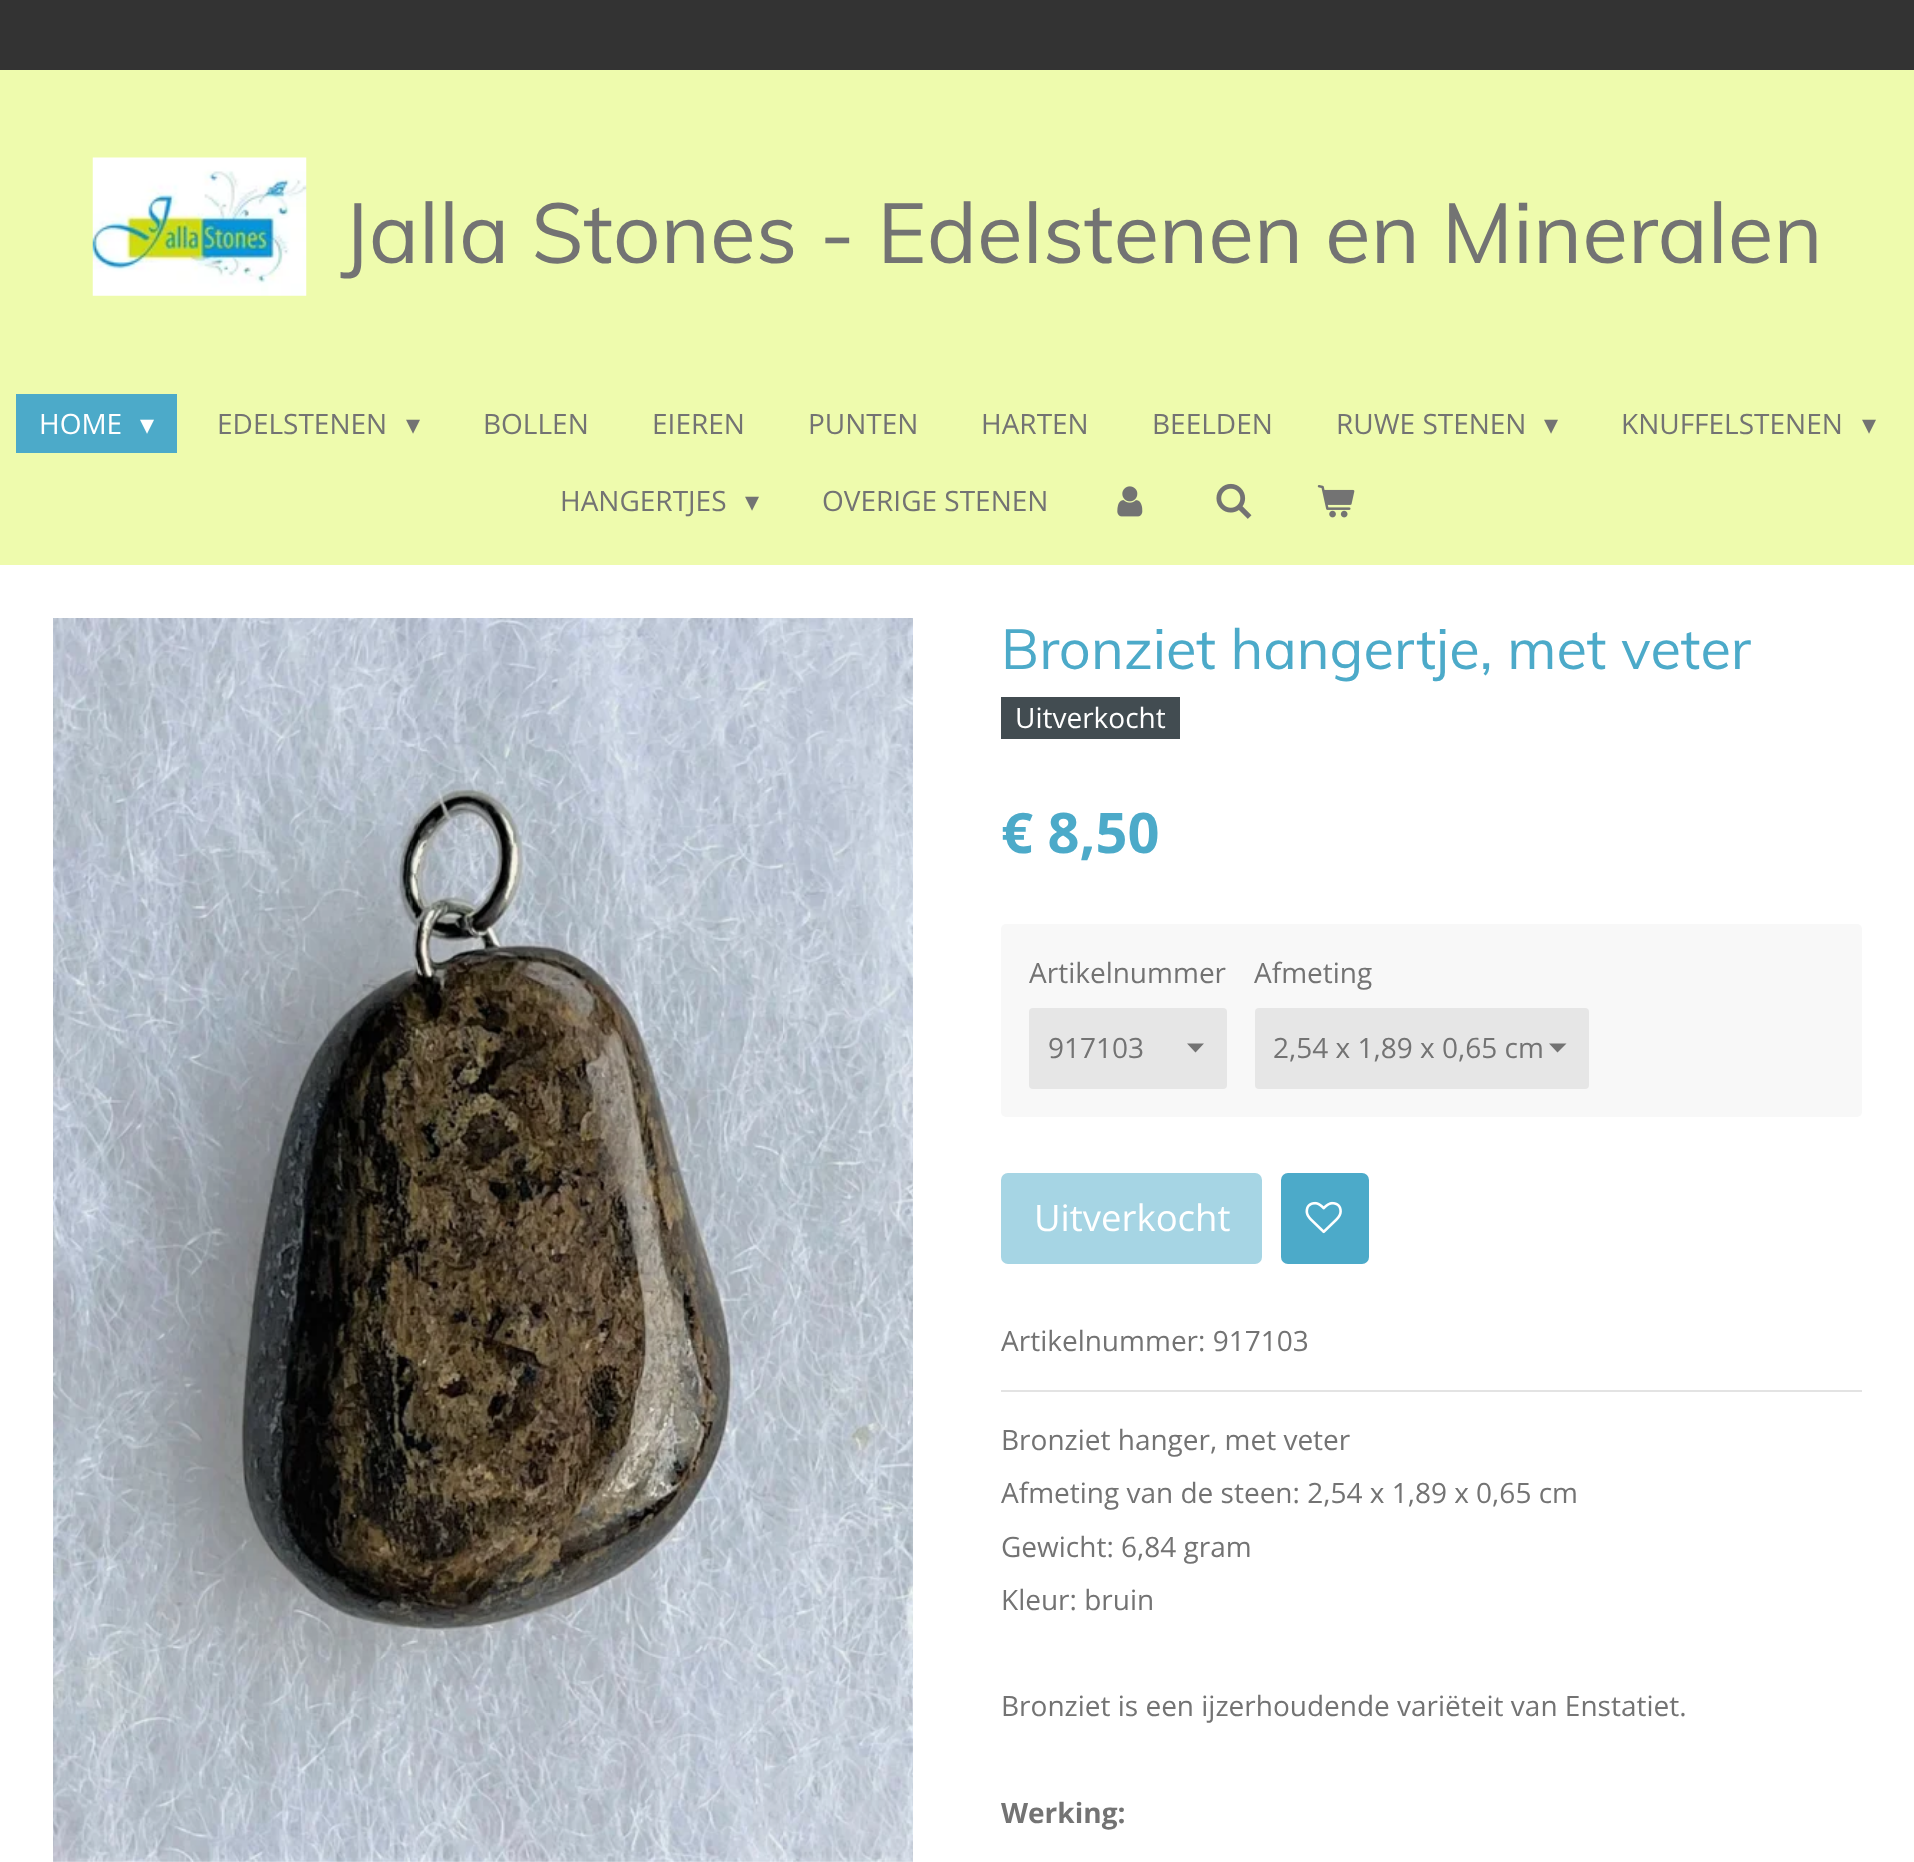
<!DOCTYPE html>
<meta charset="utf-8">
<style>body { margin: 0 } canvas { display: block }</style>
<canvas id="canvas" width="1914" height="1862"></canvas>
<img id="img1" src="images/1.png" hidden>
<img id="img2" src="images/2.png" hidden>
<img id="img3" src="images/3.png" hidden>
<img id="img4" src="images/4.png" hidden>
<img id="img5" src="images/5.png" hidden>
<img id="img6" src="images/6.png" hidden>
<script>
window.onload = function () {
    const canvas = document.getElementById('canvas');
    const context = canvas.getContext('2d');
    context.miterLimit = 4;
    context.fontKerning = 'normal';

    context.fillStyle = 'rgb(238, 251, 173)';
    context.fillRect(0, 0, 1914, 1862);
    context.fillStyle = 'rgb(51, 51, 51)';
    context.fillRect(0, 0, 1914, 70);
    context.drawImage(document.getElementById('img1'), 92, 157, 215, 139);
    context.fillStyle = 'rgb(76, 170, 201)';
    context.fillRect(16, 394, 161, 59);
    context.drawImage(document.getElementById('img2'), 1117, 486, 26, 31);
    context.drawImage(document.getElementById('img3'), 1216, 483, 36, 36);
    context.drawImage(document.getElementById('img4'), 1317, 485, 38, 33);
    context.fillStyle = 'rgb(255, 255, 255)';
    context.fillRect(0, 565, 1914, 1297);
    context.drawImage(document.getElementById('img5'), 53, 618, 860, 1244);
    context.fillStyle = 'rgb(66, 76, 81)';
    context.fillRect(1001, 697, 179, 42);
    context.fillStyle = 'rgb(248, 248, 248)';
    context.beginPath();
    context.roundRect(1001, 924, 861, 193, 5);
    context.fill();
    context.fillStyle = 'rgb(230, 230, 230)';
    context.beginPath();
    context.roundRect(1029, 1008, 198, 81, 4);
    context.fill();
    context.fillStyle = 'rgb(115, 115, 115)';
    context.beginPath();
    context.moveTo(1195.5, 1052.5);
    context.lineTo(1187, 1043.5);
    context.lineTo(1204, 1043.5);
    context.closePath();
    context.fill();
    context.fillStyle = 'rgb(230, 230, 230)';
    context.beginPath();
    context.roundRect(1255, 1008, 334, 81, 4);
    context.fill();
    context.fillStyle = 'rgb(115, 115, 115)';
    context.beginPath();
    context.moveTo(1557.5, 1052.5);
    context.lineTo(1549, 1043.5);
    context.lineTo(1566.5, 1043.5);
    context.closePath();
    context.fill();
    context.fillStyle = 'rgb(166, 213, 228)';
    context.beginPath();
    context.roundRect(1001, 1173, 261, 91, 7);
    context.fill();
    context.fillStyle = 'rgb(76, 170, 201)';
    context.beginPath();
    context.roundRect(1281, 1173, 88, 91, 7);
    context.fill();
    context.drawImage(document.getElementById('img6'), 1305, 1201, 37, 33);
    context.fillStyle = 'rgb(227, 227, 227)';
    context.fillRect(1001, 1390, 861, 2);
    context.font = '84px Muli';
    context.fillStyle = 'rgb(115, 115, 115)';
    context.fillText('Jalla Stones - Edelstenen en Mineralen', 341, 263);
    context.font = '28px Open Sans';
    context.fillStyle = 'rgb(255, 255, 255)';
    context.fillText('HOME', 39, 434);
    context.font = '28px DejaVu Sans';
    context.fillText('▾', 140, 434);
    context.font = '28px Open Sans';
    context.fillStyle = 'rgb(115, 115, 115)';
    context.fillText('EDELSTENEN', 217, 434);
    context.font = '28px DejaVu Sans';
    context.fillText('▾', 406, 434);
    context.font = '28px Open Sans';
    context.fillText('BOLLEN', 483, 434);
    context.fillText('EIEREN', 652, 434);
    context.fillText('PUNTEN', 808, 434);
    context.fillText('HARTEN', 981, 434);
    context.fillText('BEELDEN', 1152, 434);
    context.fillText('RUWE STENEN', 1336, 434);
    context.font = '28px DejaVu Sans';
    context.fillText('▾', 1544, 434);
    context.font = '28px Open Sans';
    context.fillText('KNUFFELSTENEN', 1621, 434);
    context.font = '28px DejaVu Sans';
    context.fillText('▾', 1862, 434);
    context.font = '28px Open Sans';
    context.fillText('HANGERTJES', 560, 511);
    context.font = '28px DejaVu Sans';
    context.fillText('▾', 745, 511);
    context.font = '28px Open Sans';
    context.fillText('OVERIGE STENEN', 822, 511);
    context.font = '56px Muli';
    context.fillStyle = 'rgb(76, 170, 201)';
    context.fillText('Bronziet hangertje, met veter', 1001, 669);
    context.font = '28px Open Sans';
    context.fillStyle = 'rgb(255, 255, 255)';
    context.fillText('Uitverkocht', 1015, 728);
    context.font = 'bold 56px Open Sans';
    context.fillStyle = 'rgb(76, 170, 201)';
    context.fillText('€ 8,50', 1001, 853);
    context.font = '28px Open Sans';
    context.fillStyle = 'rgb(115, 115, 115)';
    context.fillText('Artikelnummer', 1029, 983);
    context.fillText('917103', 1048, 1058);
    context.fillText('Afmeting', 1254, 983);
    context.fillText('2,54 x 1,89 x 0,65 cm', 1273, 1058);
    context.font = '36.5px Open Sans';
    context.fillStyle = 'rgb(255, 255, 255)';
    context.fillText('Uitverkocht', 1034, 1231);
    context.font = '28px Open Sans';
    context.fillStyle = 'rgb(115, 115, 115)';
    context.fillText('Artikelnummer: 917103', 1001, 1351);
    context.fillText('Bronziet hanger, met veter', 1001, 1450);
    context.fillText('Afmeting van de steen: 2,54 x 1,89 x 0,65 cm', 1001, 1503);
    context.fillText('Gewicht: 6,84 gram', 1001, 1557);
    context.fillText('Kleur: bruin', 1001, 1610);
    context.fillText('Bronziet is een ijzerhoudende variëteit van Enstatiet.', 1001, 1716);
    context.font = 'bold 28px Open Sans';
    context.fillText('Werking:', 1001, 1823);
};
</script>
